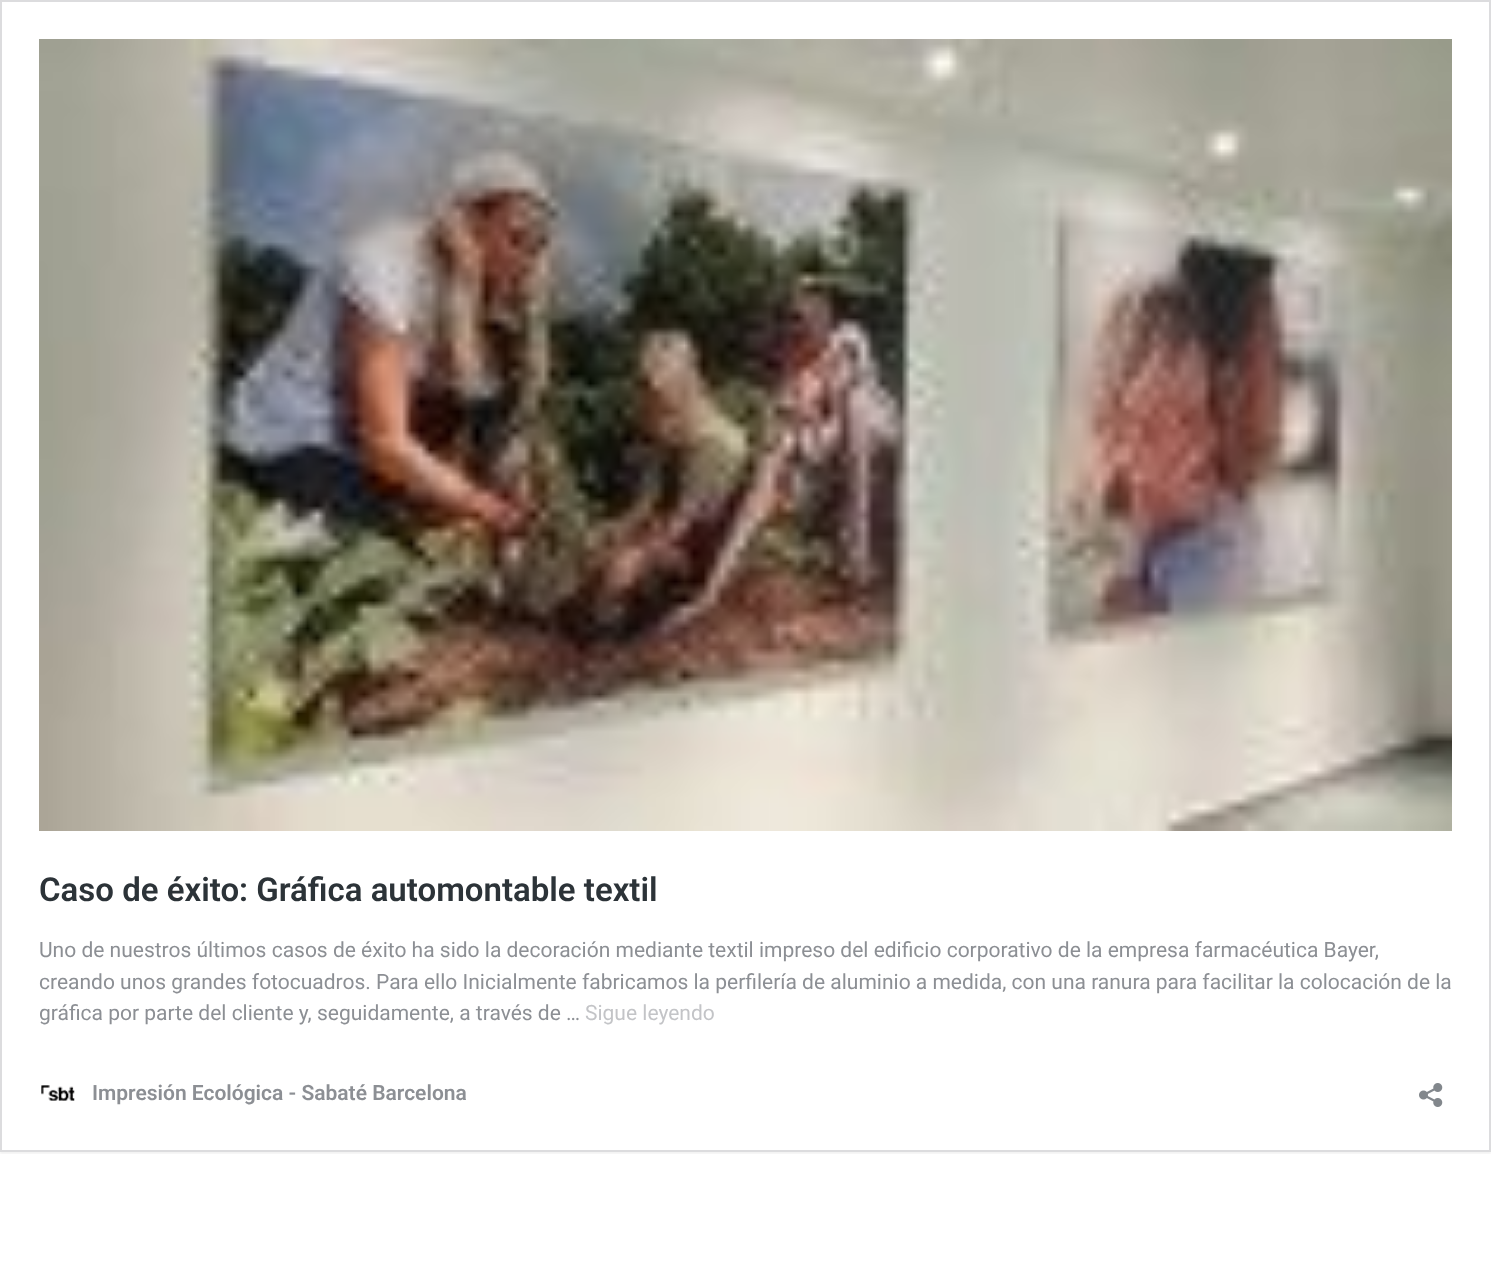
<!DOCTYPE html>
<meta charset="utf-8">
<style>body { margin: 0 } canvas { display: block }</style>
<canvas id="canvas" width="1491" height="1262"></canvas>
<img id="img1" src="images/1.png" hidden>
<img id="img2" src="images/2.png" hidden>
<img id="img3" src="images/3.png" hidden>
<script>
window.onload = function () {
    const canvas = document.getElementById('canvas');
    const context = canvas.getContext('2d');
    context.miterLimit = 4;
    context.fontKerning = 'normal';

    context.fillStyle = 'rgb(255, 255, 255)';
    context.fillRect(0, 0, 1491, 1262);
    context.save();
    context.beginPath();
    context.rect(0, 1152, 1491, 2);
    context.clip();
    context.fillStyle = 'rgba(0, 0, 0, 0.05)';
    context.filter = 'blur(1px)';
    context.beginPath();
    context.rect(0, 2, 1491, 1152);
    context.fill();
    context.filter = 'none';
    context.restore();
    context.strokeStyle = 'rgb(220, 220, 222)';
    context.lineWidth = 2;
    context.strokeRect(1, 1, 1489, 1150);
    context.drawImage(document.getElementById('img1'), 39, 39, 1413, 792);
    context.drawImage(document.getElementById('img2'), 41, 1085, 34, 16);
    context.drawImage(document.getElementById('img3'), 1419, 1083, 24, 24);
    context.font = '600 33px Roboto';
    context.fillStyle = 'rgb(44, 51, 56)';
    context.fillText('Caso de éxito: Gráfica automontable textil', 39, 901);
    context.font = '21px Roboto';
    context.fillStyle = 'rgb(140, 143, 148)';
    context.fillText('Uno de nuestros últimos casos de éxito ha sido la decoración mediante textil impreso del edificio corporativo de la empresa farmacéutica Bayer,', 39, 957);
    context.fillText('creando unos grandes fotocuadros. Para ello Inicialmente fabricamos la perfilería de aluminio a medida, con una ranura para facilitar la colocación de la', 39, 989);
    context.fillText('gráfica por parte del cliente y, seguidamente, a través de …', 39, 1020);
    context.fillStyle = 'rgb(195, 196, 199)';
    context.fillText('Sigue leyendo', 585, 1020);
    context.font = '600 21px Roboto';
    context.fillStyle = 'rgb(140, 143, 148)';
    context.fillText('Impresión Ecológica - Sabaté Barcelona', 92, 1100);
};
</script>
